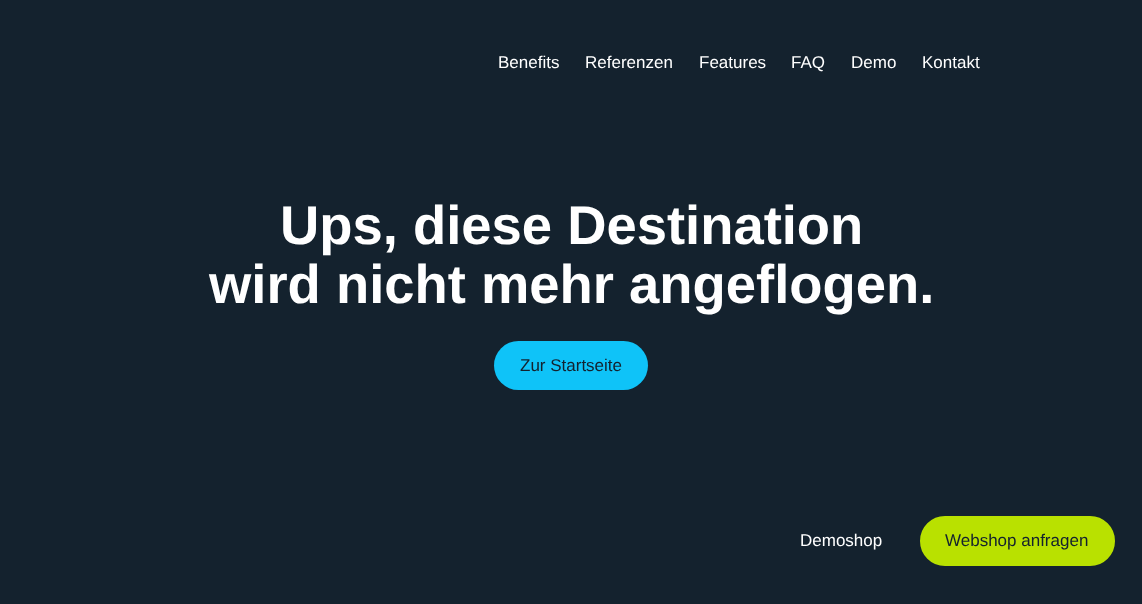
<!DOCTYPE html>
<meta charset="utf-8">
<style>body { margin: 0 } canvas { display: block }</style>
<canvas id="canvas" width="1142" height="604"></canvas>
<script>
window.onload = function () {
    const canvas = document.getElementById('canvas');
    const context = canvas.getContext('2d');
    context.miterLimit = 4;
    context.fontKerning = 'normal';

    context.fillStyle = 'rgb(20, 34, 46)';
    context.fillRect(0, 0, 1142, 604);
    context.fillStyle = 'rgb(185, 225, 0)';
    context.beginPath();
    context.roundRect(921, 517, 193, 48, 24);
    context.fill();
    context.strokeStyle = 'rgb(185, 225, 0)';
    context.lineWidth = 2;
    context.stroke();
    context.fillStyle = 'rgb(15, 195, 248)';
    context.beginPath();
    context.roundRect(494, 341, 154, 49, 24.5);
    context.fill();
    context.font = '17px Liberation Sans';
    context.fillStyle = 'rgb(255, 255, 255)';
    context.fillText('Benefits', 498, 68);
    context.fillText('Referenzen', 585, 68);
    context.fillText('Features', 699, 68);
    context.fillText('FAQ', 791, 68);
    context.fillText('Demo', 851, 68);
    context.fillText('Kontakt', 922, 68);
    context.fillText('Demoshop', 800, 546);
    context.fillStyle = 'rgb(20, 34, 46)';
    context.fillText('Webshop anfragen', 945, 546);
    context.font = 'bold 54.4px Liberation Sans';
    context.fillStyle = 'rgb(255, 255, 255)';
    context.fillText('Ups, diese Destination', 280, 244);
    context.fillText('wird nicht mehr angeflogen.', 209, 303);
    context.font = '17px Liberation Sans';
    context.fillStyle = 'rgb(20, 34, 46)';
    context.fillText('Zur Startseite', 520, 371);
};
</script>
